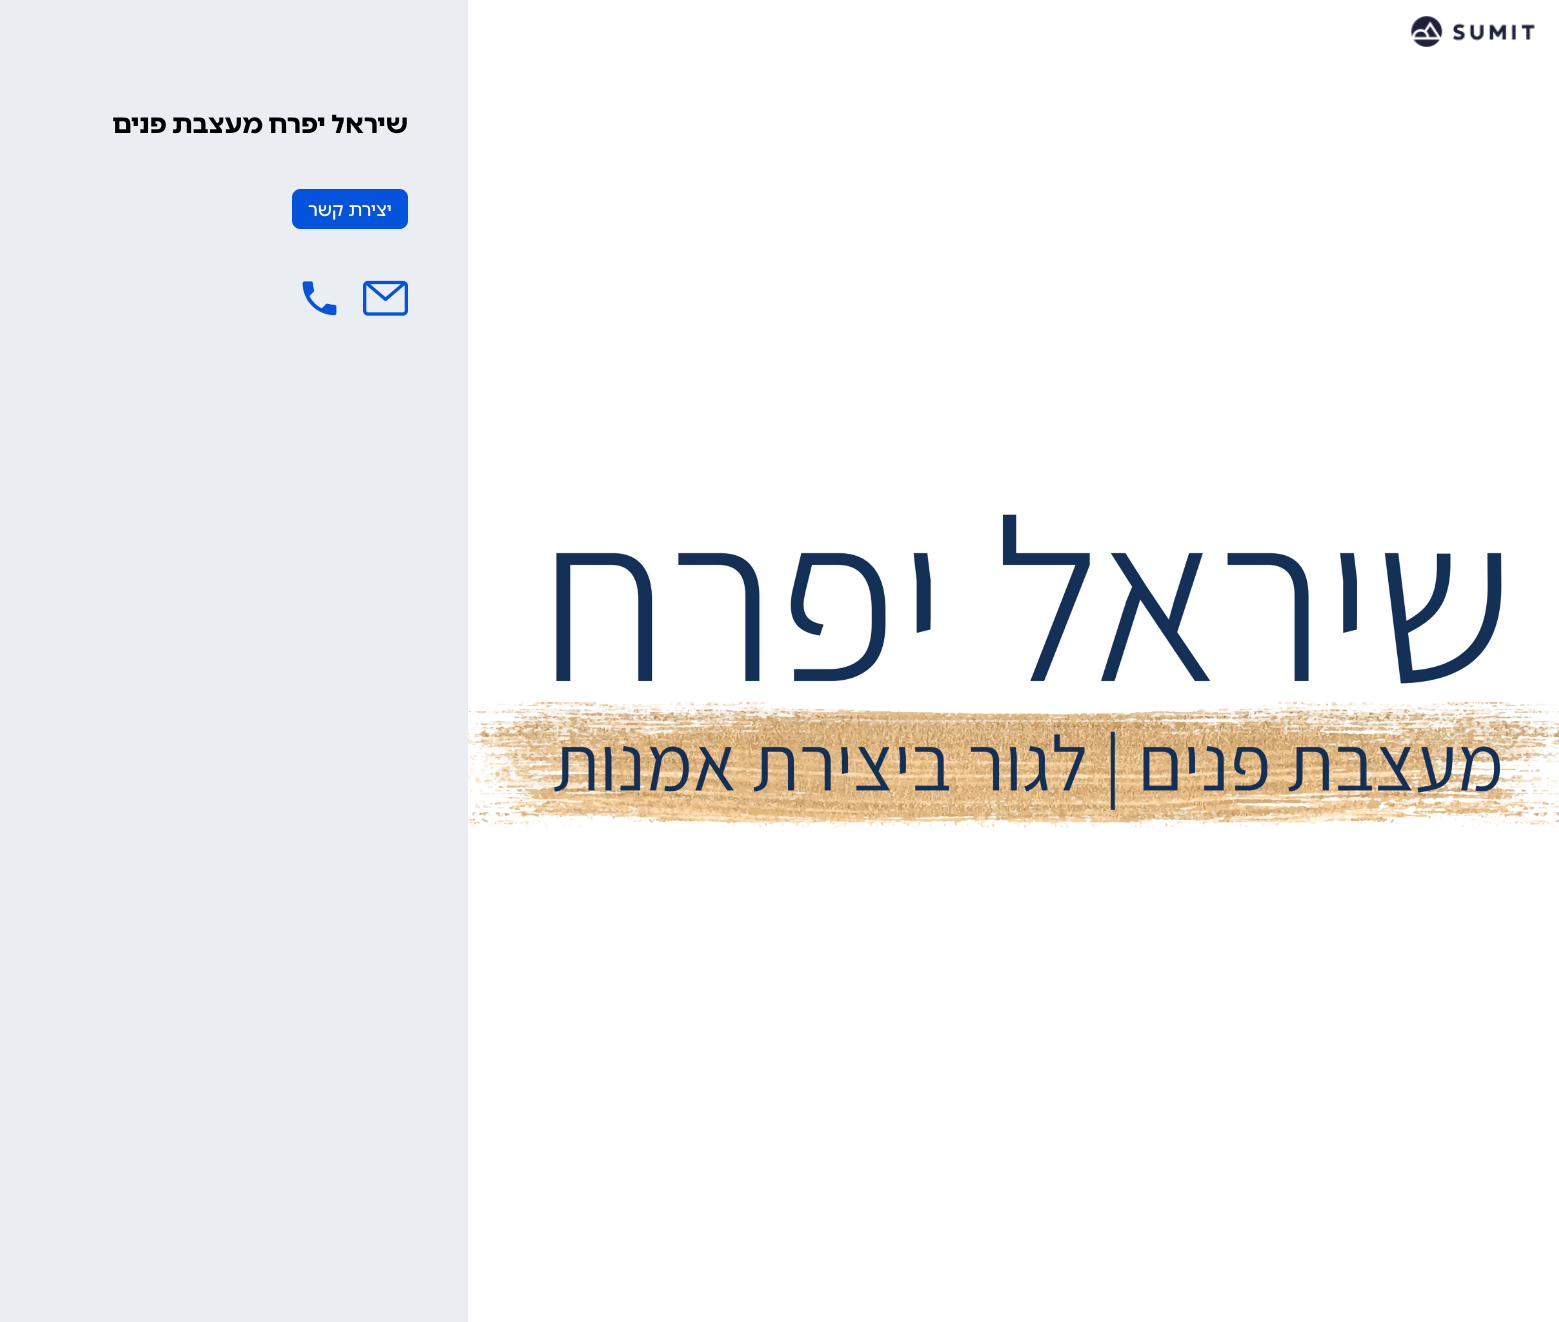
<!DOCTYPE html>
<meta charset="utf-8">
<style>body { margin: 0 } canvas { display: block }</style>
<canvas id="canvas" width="1559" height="1322"></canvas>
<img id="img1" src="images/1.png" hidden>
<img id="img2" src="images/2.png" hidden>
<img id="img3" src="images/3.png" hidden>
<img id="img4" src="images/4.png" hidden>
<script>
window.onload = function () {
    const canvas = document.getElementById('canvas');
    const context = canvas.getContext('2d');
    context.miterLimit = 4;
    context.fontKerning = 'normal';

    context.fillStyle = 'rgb(234, 238, 243)';
    context.fillRect(0, 0, 1559, 1322);
    context.drawImage(document.getElementById('img1'), 468, 0, 1091, 1322);
    context.drawImage(document.getElementById('img2'), 1411, 16, 124, 31);
    context.fillStyle = 'rgb(4, 83, 220)';
    context.beginPath();
    context.roundRect(292.5, 189.5, 115, 39, 7.5);
    context.fill();
    context.strokeStyle = 'rgb(4, 83, 220)';
    context.stroke();
    context.drawImage(document.getElementById('img3'), 363, 280, 45, 36);
    context.drawImage(document.getElementById('img4'), 302, 281, 35, 35);
    context.direction = 'rtl';
    context.font = 'bold 26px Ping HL';
    context.fillStyle = 'rgb(0, 0, 0)';
    context.fillText('שיראל יפרח מעצבת פנים', 408, 133);
    context.font = '500 18px Ping HL';
    context.fillStyle = 'rgb(255, 255, 255)';
    context.fillText('יצירת קשר', 392, 216);
};
</script>
